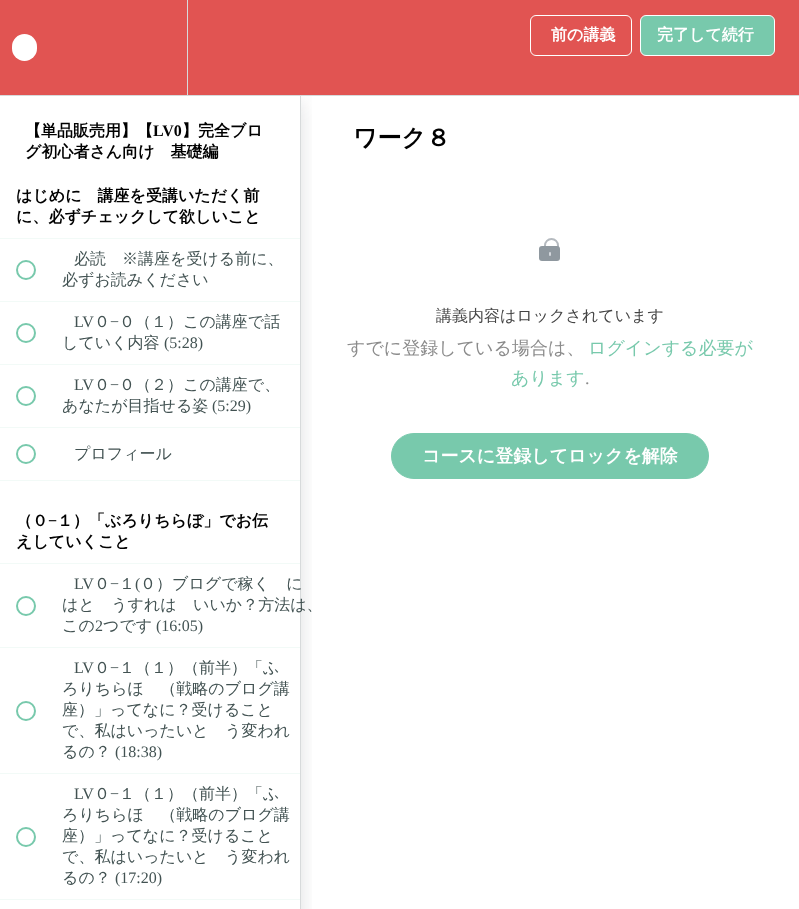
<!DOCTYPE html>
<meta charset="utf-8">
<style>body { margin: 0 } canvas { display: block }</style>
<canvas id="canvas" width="799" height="909"></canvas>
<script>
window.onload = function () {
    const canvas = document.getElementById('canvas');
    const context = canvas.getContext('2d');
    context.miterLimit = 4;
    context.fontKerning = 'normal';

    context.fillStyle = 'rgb(255, 255, 255)';
    context.fillRect(0, 0, 799, 909);
    context.save();
    context.beginPath();
    context.rect(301, 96, 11, 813);
    context.clip();
    context.fillStyle = 'rgba(32, 39, 45, 0.15)';
    context.filter = 'blur(10px)';
    context.beginPath();
    context.rect(0, 102, 301, 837);
    context.fill();
    context.filter = 'none';
    context.restore();
    context.fillStyle = 'rgb(225, 84, 82)';
    context.fillRect(0, 0, 799, 95);
    context.fillStyle = 'rgb(215, 218, 219)';
    context.fillRect(0, 95, 799, 1);
    context.fillStyle = 'rgb(255, 255, 255)';
    context.beginPath();
    context.roundRect(12, 34, 25, 27, 12.5);
    context.fill();
    context.fillStyle = 'rgb(215, 218, 219)';
    context.fillRect(187, 0, 1, 95);
    context.beginPath();
    context.roundRect(530.5, 15.5, 101, 40, 5.5);
    context.strokeStyle = 'rgb(255, 255, 255)';
    context.stroke();
    context.fillStyle = 'rgb(120, 201, 172)';
    context.beginPath();
    context.roundRect(640.5, 15.5, 134, 40, 5.5);
    context.fill();
    context.stroke();
    context.fillStyle = 'rgb(215, 218, 219)';
    context.fillRect(300, 96, 1, 813);
    context.fillStyle = 'rgb(242, 250, 247)';
    context.fillRect(0, 238, 300, 1);
    context.fillRect(0, 301, 300, 1);
    context.beginPath();
    context.arc(26, 270, 9, 0, 2 * Math.PI);
    context.strokeStyle = 'rgb(120, 201, 172)';
    context.lineWidth = 2;
    context.stroke();
    context.fillRect(0, 364, 300, 1);
    context.beginPath();
    context.arc(26, 333, 9, 0, 2 * Math.PI);
    context.stroke();
    context.fillRect(0, 427, 300, 1);
    context.beginPath();
    context.arc(26, 396, 9, 0, 2 * Math.PI);
    context.stroke();
    context.fillRect(0, 480, 300, 1);
    context.beginPath();
    context.arc(26, 454, 9, 0, 2 * Math.PI);
    context.stroke();
    context.fillRect(0, 563, 300, 1);
    context.fillRect(0, 647, 300, 1);
    context.beginPath();
    context.arc(26, 606, 9, 0, 2 * Math.PI);
    context.stroke();
    context.fillRect(0, 773, 300, 1);
    context.beginPath();
    context.arc(26, 711, 9, 0, 2 * Math.PI);
    context.stroke();
    context.fillRect(0, 899, 300, 1);
    context.beginPath();
    context.arc(26, 837, 9, 0, 2 * Math.PI);
    context.stroke();
    context.beginPath();
    context.roundRect(545, 239, 13, 20, 6.5);
    context.strokeStyle = 'rgb(181, 186, 191)';
    context.stroke();
    context.fillStyle = 'rgb(143, 152, 159)';
    context.beginPath();
    context.roundRect(539, 246, 21, 15, 3);
    context.fill();
    context.fillStyle = 'rgb(211, 215, 220)';
    context.beginPath();
    context.roundRect(549, 252, 2, 4, 1);
    context.fill();
    context.fillStyle = 'rgb(120, 201, 172)';
    context.beginPath();
    context.roundRect(391.5, 433.5, 317, 45, 22.5);
    context.fill();
    context.strokeStyle = 'rgb(120, 201, 172)';
    context.lineWidth = 1;
    context.stroke();
    context.font = 'bold 16px WenQuanYi Zen Hei';
    context.fillStyle = 'rgb(255, 255, 255)';
    context.fillText('前の講義', 551, 40);
    context.fillText('完了して続行', 657, 40);
    context.fillStyle = 'rgb(0, 0, 0)';
    context.fillText('【単品販売用】【', 25, 136);
    context.font = 'bold 16px Liberation Serif';
    context.fillText('LV0', 153, 136);
    context.font = 'bold 16px WenQuanYi Zen Hei';
    context.fillText('】完全ブロ', 182, 136);
    context.fillText('グ初心者さん向け　基礎編', 25, 157);
    context.fillText('はじめに　講座を受講いただく前', 16, 201);
    context.fillText('に、必ずチェックして欲しいこと', 16, 222);
    context.font = '500 16px WenQuanYi Zen Hei';
    context.fillStyle = 'rgb(66, 82, 82)';
    context.fillText('必読　※講座を受ける前に、', 74, 264);
    context.fillText('必ずお読みください', 62, 285);
    context.font = '16px Liberation Serif';
    context.fillText('LV', 74, 327);
    context.font = '500 16px WenQuanYi Zen Hei';
    context.fillText('０', 94, 327);
    context.font = '16px Liberation Serif';
    context.fillText('−', 110, 327);
    context.font = '500 16px WenQuanYi Zen Hei';
    context.fillText('０（１）この講座で話', 119, 327);
    context.fillText('していく内容', 62, 348);
    context.font = '16px Liberation Serif';
    context.fillText('(5:28)', 164, 348);
    context.fillText('LV', 74, 390);
    context.font = '500 16px WenQuanYi Zen Hei';
    context.fillText('０', 94, 390);
    context.font = '16px Liberation Serif';
    context.fillText('−', 110, 390);
    context.font = '500 16px WenQuanYi Zen Hei';
    context.fillText('０（２）この講座で、', 119, 390);
    context.fillText('あなたが目指せる姿', 62, 411);
    context.font = '16px Liberation Serif';
    context.fillText('(5:29)', 212, 411);
    context.font = '500 16px WenQuanYi Zen Hei';
    context.fillText('プロフィール', 74, 459);
    context.font = 'bold 16px WenQuanYi Zen Hei';
    context.fillStyle = 'rgb(0, 0, 0)';
    context.fillText('（０', 16, 526);
    context.font = 'bold 16px Liberation Serif';
    context.fillText('−', 48, 526);
    context.font = 'bold 16px WenQuanYi Zen Hei';
    context.fillText('１）「ぶろりちらぼ」でお伝', 57, 526);
    context.fillText('えしていくこと', 16, 547);
    context.font = '16px Liberation Serif';
    context.fillStyle = 'rgb(66, 82, 82)';
    context.fillText('LV', 74, 589);
    context.font = '500 16px WenQuanYi Zen Hei';
    context.fillText('０', 94, 589);
    context.font = '16px Liberation Serif';
    context.fillText('−', 110, 589);
    context.font = '500 16px WenQuanYi Zen Hei';
    context.fillText('１', 119, 589);
    context.font = '16px Liberation Serif';
    context.fillText('(', 135, 589);
    context.font = '500 16px WenQuanYi Zen Hei';
    context.fillText('０）ブログで稼ぐに', 140, 589);
    context.fillText('はどうすればいいか？方法は、', 62, 610);
    context.fillText('この', 62, 631);
    context.font = '16px Liberation Serif';
    context.fillText('2', 95, 631);
    context.font = '500 16px WenQuanYi Zen Hei';
    context.fillText('つです', 103, 631);
    context.font = '16px Liberation Serif';
    context.fillText('(16:05)', 156, 631);
    context.fillText('LV', 74, 673);
    context.font = '500 16px WenQuanYi Zen Hei';
    context.fillText('０', 94, 673);
    context.font = '16px Liberation Serif';
    context.fillText('−', 110, 673);
    context.font = '500 16px WenQuanYi Zen Hei';
    context.fillText('１（１）（前半）「ぶ', 119, 673);
    context.fillText('ろりちらぼ（戦略のブログ講', 62, 694);
    context.fillText('座）」ってなに？受けること', 62, 715);
    context.fillText('で、私はいったいどう変われ', 62, 736);
    context.fillText('るの？', 62, 757);
    context.font = '16px Liberation Serif';
    context.fillText('(18:38)', 115, 757);
    context.fillText('LV', 74, 799);
    context.font = '500 16px WenQuanYi Zen Hei';
    context.fillText('０', 94, 799);
    context.font = '16px Liberation Serif';
    context.fillText('−', 110, 799);
    context.font = '500 16px WenQuanYi Zen Hei';
    context.fillText('１（１）（前半）「ぶ', 119, 799);
    context.fillText('ろりちらぼ（戦略のブログ講', 62, 820);
    context.fillText('座）」ってなに？受けること', 62, 841);
    context.fillText('で、私はいったいどう変われ', 62, 862);
    context.fillText('るの？', 62, 883);
    context.font = '16px Liberation Serif';
    context.fillText('(17:20)', 115, 883);
    context.font = 'bold 24px WenQuanYi Zen Hei';
    context.fillStyle = 'rgb(0, 0, 0)';
    context.fillText('ワーク８', 353, 146);
    context.font = '500 16px WenQuanYi Zen Hei';
    context.fillStyle = 'rgb(69, 69, 69)';
    context.fillText('講義内容はロックされています', 436, 321);
    context.font = '500 18px WenQuanYi Zen Hei';
    context.fillStyle = 'rgb(139, 139, 139)';
    context.fillText('すでに登録している場合は、', 347, 354);
    context.fillStyle = 'rgb(120, 201, 172)';
    context.fillText('ログインする必要が', 588, 354);
    context.fillText('あります', 511, 384);
    context.font = '18px Liberation Serif';
    context.fillStyle = 'rgb(139, 139, 139)';
    context.fillText('.', 585, 384);
    context.font = 'bold 18px WenQuanYi Zen Hei';
    context.fillStyle = 'rgb(255, 255, 255)';
    context.fillText('コースに登録してロックを解除', 422, 462);
};
</script>
